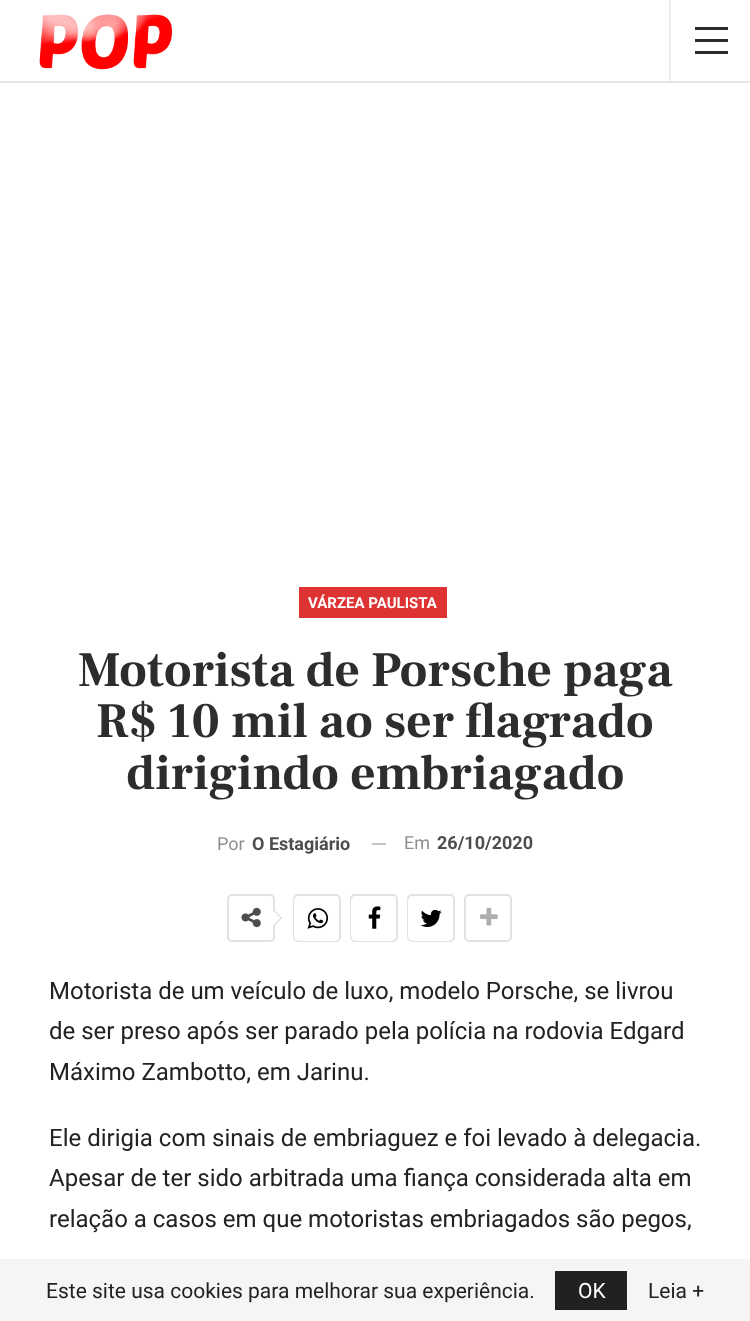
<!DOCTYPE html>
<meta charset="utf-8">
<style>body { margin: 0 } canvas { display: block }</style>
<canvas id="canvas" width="750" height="1321"></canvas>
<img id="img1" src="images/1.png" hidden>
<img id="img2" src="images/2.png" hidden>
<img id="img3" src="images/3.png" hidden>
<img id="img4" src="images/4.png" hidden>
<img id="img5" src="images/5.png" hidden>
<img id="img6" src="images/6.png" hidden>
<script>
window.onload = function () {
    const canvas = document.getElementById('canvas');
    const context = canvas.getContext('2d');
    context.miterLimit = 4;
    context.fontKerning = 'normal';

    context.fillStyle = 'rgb(255, 255, 255)';
    context.fillRect(0, 0, 750, 1321);
    context.fillStyle = 'rgb(229, 229, 229)';
    context.fillRect(0, 81, 750, 2);
    context.drawImage(document.getElementById('img1'), 39, 14, 134, 56);
    context.fillStyle = 'rgb(237, 237, 237)';
    context.fillRect(669, 0, 2, 81);
    context.fillStyle = 'rgb(44, 44, 44)';
    context.fillRect(695, 39, 33, 3);
    context.fillRect(695, 27, 33, 3);
    context.fillRect(695, 51, 33, 3);
    context.fillStyle = 'rgb(221, 51, 51)';
    context.fillRect(299, 587, 148, 31);
    context.fillStyle = 'rgb(196, 196, 196)';
    context.fillRect(372, 843, 14, 2);
    context.beginPath();
    context.roundRect(228, 895, 46, 46, 4);
    context.strokeStyle = 'rgb(226, 226, 226)';
    context.lineWidth = 2;
    context.stroke();
    context.drawImage(document.getElementById('img2'), 241, 907, 20, 21);
    context.fillStyle = 'rgb(215, 215, 215)';
    context.beginPath();
    context.moveTo(273, 927);
    context.lineTo(273, 909);
    context.lineTo(282, 918);
    context.closePath();
    context.fill();
    context.fillStyle = 'rgb(255, 255, 255)';
    context.beginPath();
    context.moveTo(273, 925.5);
    context.lineTo(273, 910.5);
    context.lineTo(280.5, 918);
    context.closePath();
    context.fill();
    context.beginPath();
    context.roundRect(294, 895, 46, 46, 4);
    context.stroke();
    context.beginPath();
    context.roundRect(294, 896, 45, 45, 5);
    context.fill();
    context.drawImage(document.getElementById('img3'), 307, 908, 22, 21);
    context.beginPath();
    context.roundRect(351, 895, 46, 46, 4);
    context.stroke();
    context.beginPath();
    context.roundRect(351, 896, 45, 45, 5);
    context.fill();
    context.drawImage(document.getElementById('img4'), 368, 906, 13, 23);
    context.beginPath();
    context.roundRect(408, 895, 46, 46, 4);
    context.stroke();
    context.beginPath();
    context.roundRect(408, 896, 45, 45, 5);
    context.fill();
    context.drawImage(document.getElementById('img5'), 420, 909, 22, 18);
    context.beginPath();
    context.roundRect(465, 895, 46, 46, 4);
    context.stroke();
    context.drawImage(document.getElementById('img6'), 480, 907, 18, 19);
    context.fillStyle = 'rgb(245, 245, 245)';
    context.fillRect(0, 1259, 750, 62);
    context.fillStyle = 'rgb(33, 33, 33)';
    context.fillRect(555, 1271, 72, 39);
    context.font = 'bold 15px Roboto';
    context.fillStyle = 'rgb(255, 255, 255)';
    context.fillText('VÁRZEA PAULISTA', 308, 608);
    context.font = 'bold 49.5px Frank Ruhl Libre';
    context.fillStyle = 'rgb(45, 45, 45)';
    context.fillText('Motorista de Porsche paga', 78, 686);
    context.fillText('R$ 10 mil ao ser flagrado', 96, 737);
    context.fillText('dirigindo embriagado', 126, 789);
    context.font = '18px Roboto';
    context.fillStyle = 'rgb(143, 143, 143)';
    context.fillText('Por', 217, 850);
    context.font = 'bold 18px Roboto';
    context.fillStyle = 'rgb(77, 77, 77)';
    context.fillText('O Estagiário', 252, 850);
    context.font = '18px Roboto';
    context.fillStyle = 'rgb(143, 143, 143)';
    context.fillText('Em', 404, 849);
    context.font = 'bold 18px Roboto';
    context.fillStyle = 'rgb(77, 77, 77)';
    context.fillText('26/10/2020', 437, 849);
    context.font = '24px Roboto';
    context.fillStyle = 'rgb(34, 34, 34)';
    context.fillText('Motorista de um veículo de luxo, modelo Porsche, se livrou', 49, 999);
    context.fillText('de ser preso após ser parado pela polícia na rodovia Edgard', 49, 1039);
    context.fillText('Máximo Zambotto, em Jarinu.', 49, 1080);
    context.fillText('Ele dirigia com sinais de embriaguez e foi levado à delegacia.', 49, 1146);
    context.fillText('Apesar de ter sido arbitrada uma fiança considerada alta em', 49, 1186);
    context.fillText('relação a casos em que motoristas embriagados são pegos,', 49, 1227);
    context.font = '21px Roboto';
    context.fillText('Este site usa cookies para melhorar sua experiência.', 46, 1298);
    context.fillStyle = 'rgb(255, 255, 255)';
    context.fillText('OK', 578, 1298);
    context.fillStyle = 'rgb(34, 34, 34)';
    context.fillText('Leia +', 648, 1298);
};
</script>
